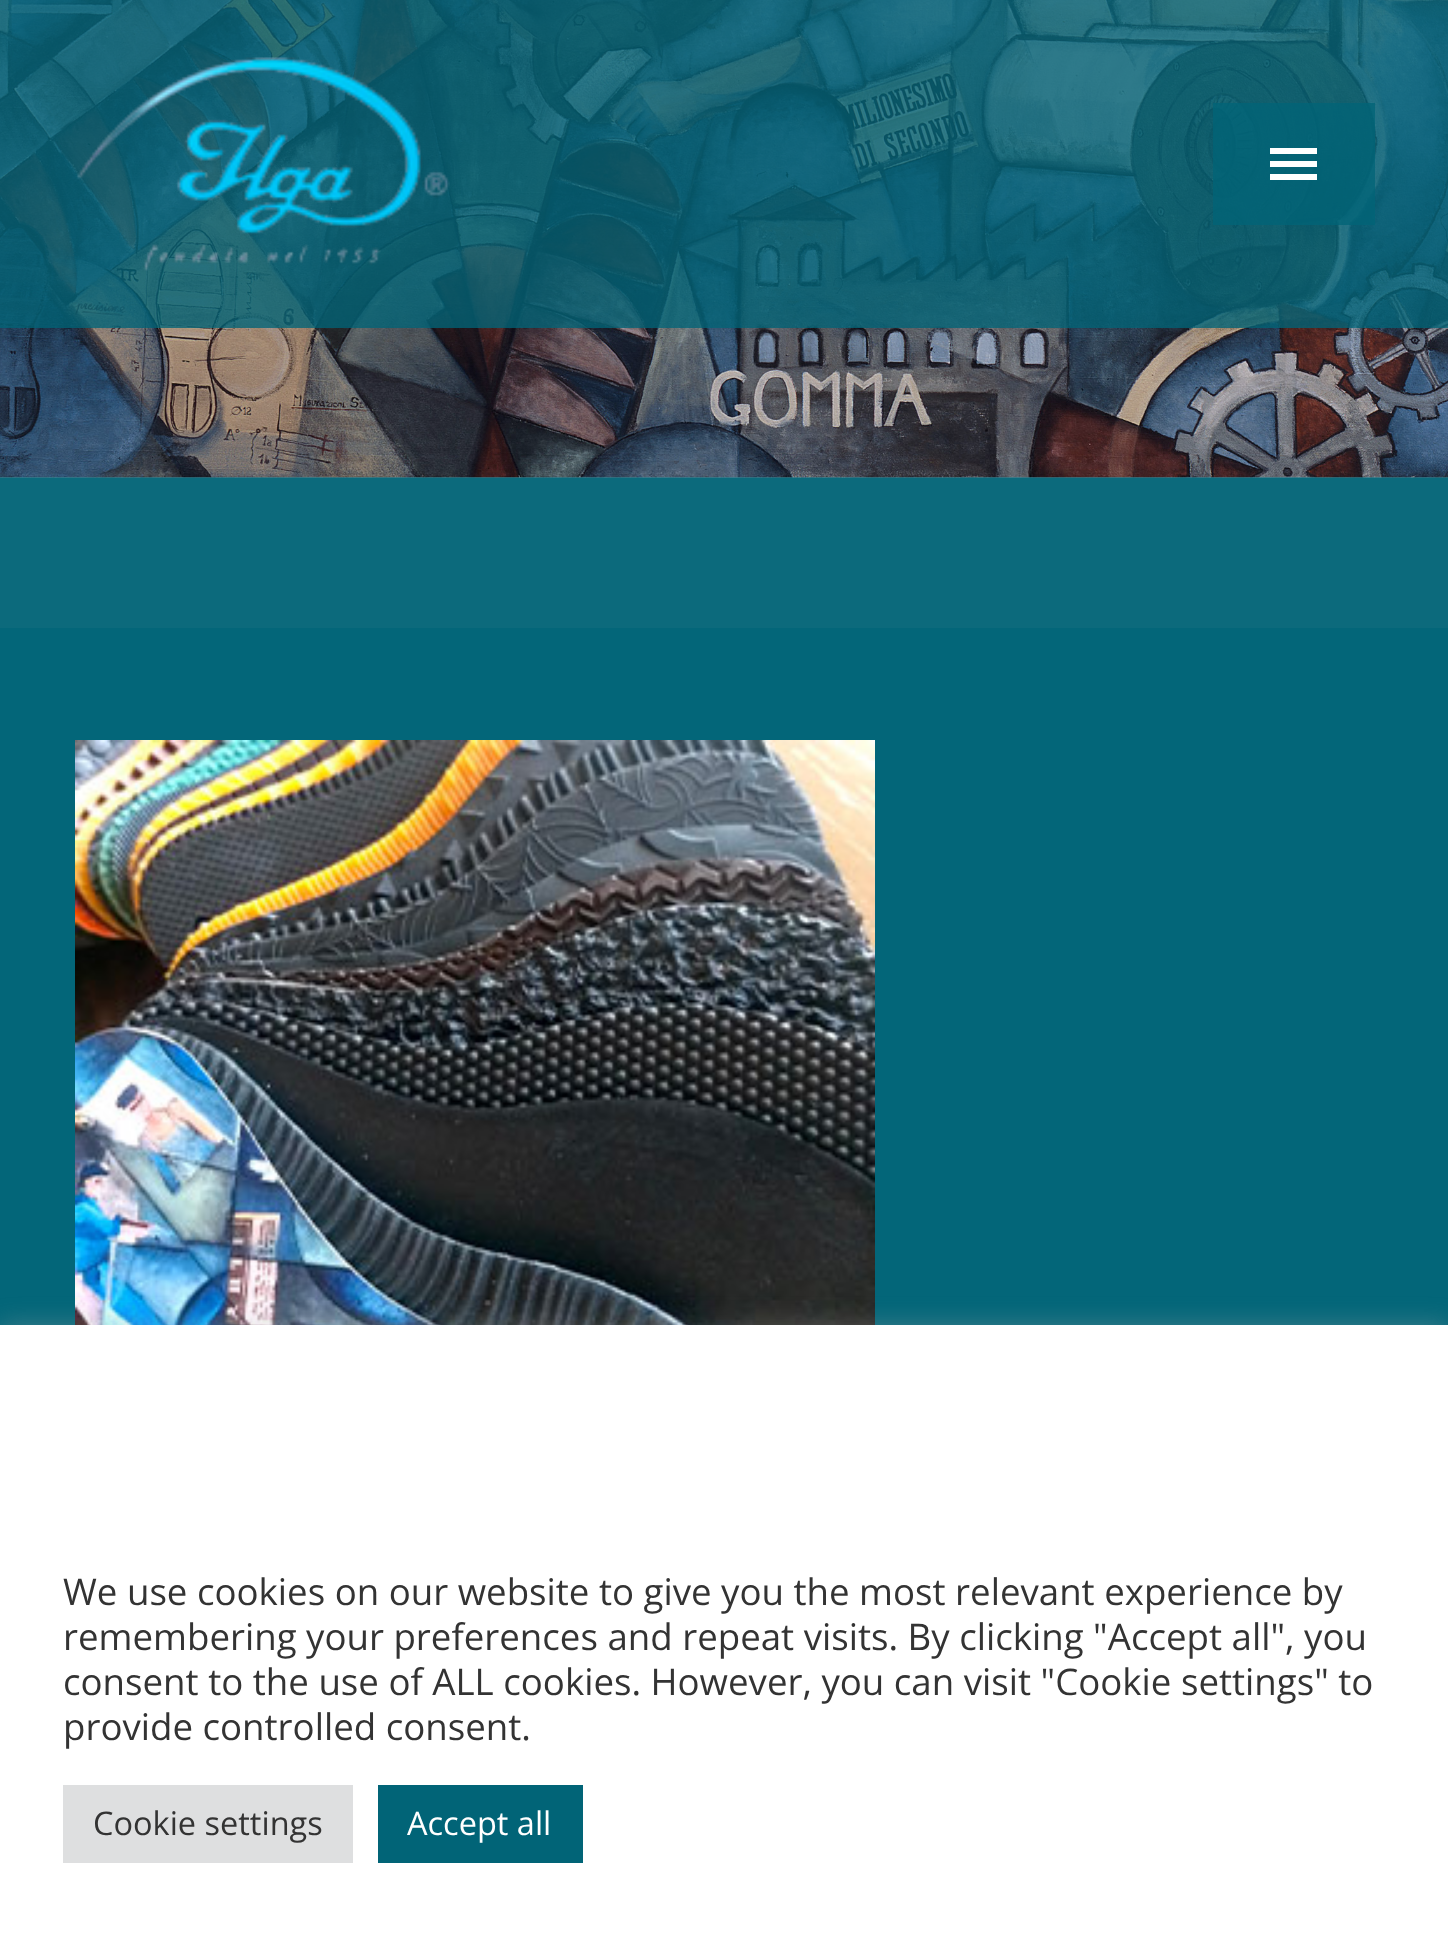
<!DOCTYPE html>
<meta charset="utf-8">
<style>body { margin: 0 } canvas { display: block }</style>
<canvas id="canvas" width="1448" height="1936"></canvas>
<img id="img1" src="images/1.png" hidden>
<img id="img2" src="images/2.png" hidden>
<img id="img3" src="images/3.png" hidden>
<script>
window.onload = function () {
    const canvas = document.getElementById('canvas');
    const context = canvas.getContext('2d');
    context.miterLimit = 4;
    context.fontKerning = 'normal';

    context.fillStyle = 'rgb(51, 128, 143)';
    context.fillRect(0, 0, 1448, 1936);
    context.drawImage(document.getElementById('img1'), 0, 0, 1448, 478);
    context.fillStyle = 'rgba(1, 100, 119, 0.78)';
    context.fillRect(0, 0, 1448, 328);
    context.drawImage(document.getElementById('img2'), 77, 57, 373, 214);
    context.fillRect(1213, 103, 162, 122);
    context.fillStyle = 'rgb(255, 255, 255)';
    context.beginPath();
    context.moveTo(1270, 148);
    context.lineTo(1317, 148);
    context.lineTo(1317, 154);
    context.lineTo(1270, 154);
    context.closePath();
    context.moveTo(1270, 167);
    context.lineTo(1270, 161);
    context.lineTo(1317, 161);
    context.lineTo(1317, 167);
    context.closePath();
    context.moveTo(1270, 180);
    context.lineTo(1270, 174);
    context.lineTo(1317, 174);
    context.lineTo(1317, 180);
    context.closePath();
    context.fill();
    context.fillStyle = 'rgb(12, 106, 124)';
    context.fillRect(0, 478, 1448, 150);
    context.fillStyle = 'rgb(3, 102, 121)';
    context.fillRect(0, 628, 1448, 697);
    context.drawImage(document.getElementById('img3'), 75, 740, 800, 585);
    context.fillStyle = 'rgba(172, 171, 171, 0.3)';
    context.filter = 'blur(12.5px)';
    context.beginPath();
    context.rect(0, 1323, 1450, 612);
    context.fill();
    context.filter = 'none';
    context.fillStyle = 'rgb(255, 255, 255)';
    context.fillRect(0, 1325, 1448, 611);
    context.fillStyle = 'rgb(222, 223, 224)';
    context.fillRect(63, 1785, 290, 78);
    context.fillStyle = 'rgb(1, 100, 119)';
    context.fillRect(378, 1785, 205, 78);
    context.font = '36.65px Open Sans';
    context.fillStyle = 'rgb(51, 51, 51)';
    context.fillText('We use cookies on our website to give you the most relevant experience by', 63, 1605);
    context.fillText('remembering your preferences and repeat visits. By clicking "Accept all", you', 63, 1650);
    context.fillText('consent to the use of ALL cookies. However, you can visit "Cookie settings" to', 63, 1695);
    context.fillText('provide controlled consent.', 63, 1740);
    context.font = '32.5px Open Sans';
    context.fillText('Cookie settings', 93, 1835);
    context.fillStyle = 'rgb(255, 255, 255)';
    context.fillText('Accept all', 407, 1835);
};
</script>
